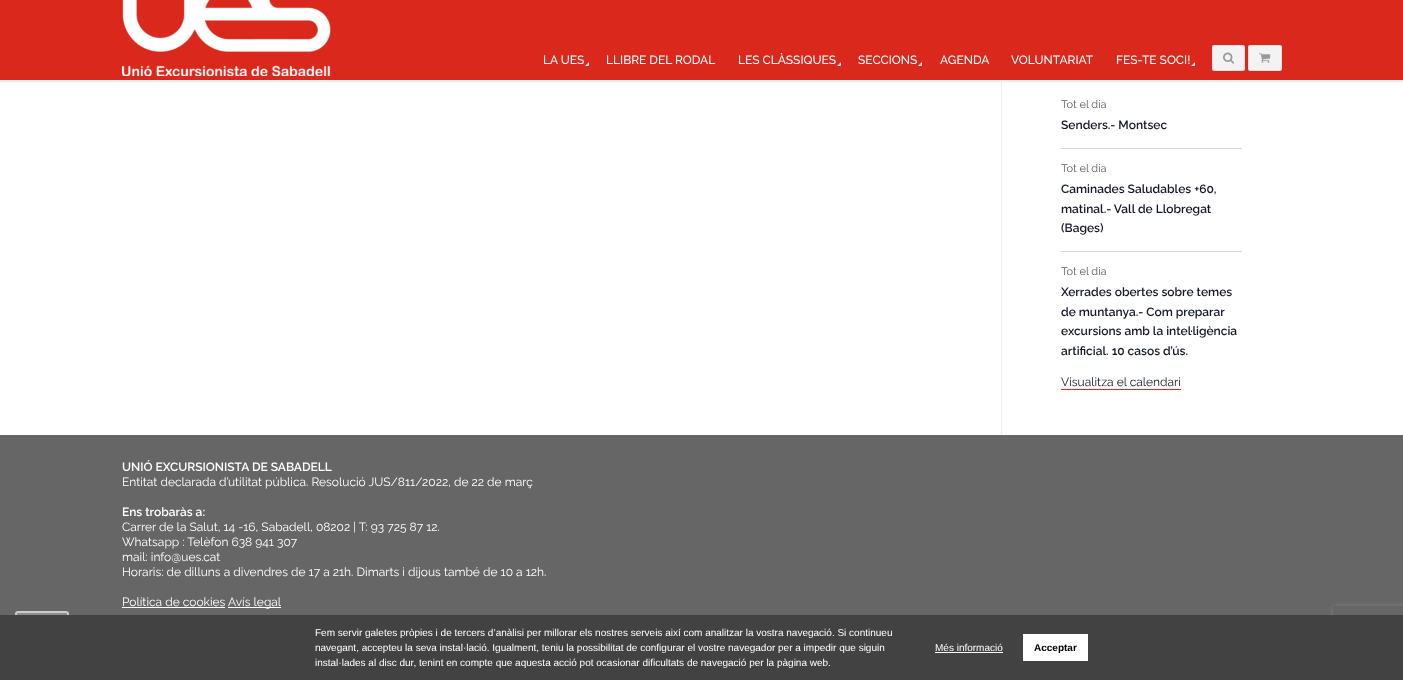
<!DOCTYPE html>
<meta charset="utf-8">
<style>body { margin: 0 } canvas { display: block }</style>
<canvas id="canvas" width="1403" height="680"></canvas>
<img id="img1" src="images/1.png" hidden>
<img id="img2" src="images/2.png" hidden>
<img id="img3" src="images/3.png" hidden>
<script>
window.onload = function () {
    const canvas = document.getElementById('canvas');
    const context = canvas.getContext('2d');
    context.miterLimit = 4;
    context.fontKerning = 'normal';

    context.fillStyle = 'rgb(255, 255, 255)';
    context.fillRect(0, 0, 1403, 680);
    context.fillStyle = 'rgb(238, 238, 238)';
    context.fillRect(1001, 82, 1, 353);
    context.fillStyle = 'rgba(0, 0, 0, 0.05)';
    context.filter = 'blur(2.5px)';
    context.beginPath();
    context.rect(0, -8, 1403, 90);
    context.fill();
    context.filter = 'none';
    context.fillStyle = 'rgb(218, 41, 28)';
    context.fillRect(0, 0, 1403, 80);
    context.fillStyle = 'rgb(238, 238, 238)';
    context.fillRect(0, 80, 1403, 2);
    context.drawImage(document.getElementById('img1'), 122, 0, 209, 76);
    context.beginPath();
    context.moveTo(589, 62);
    context.lineTo(589, 66);
    context.lineTo(587, 64);
    context.closePath();
    context.fill();
    context.beginPath();
    context.moveTo(589, 66);
    context.lineTo(585, 66);
    context.lineTo(587, 64);
    context.closePath();
    context.fill();
    context.beginPath();
    context.moveTo(841, 62);
    context.lineTo(841, 66);
    context.lineTo(839, 64);
    context.closePath();
    context.fill();
    context.beginPath();
    context.moveTo(841, 66);
    context.lineTo(837, 66);
    context.lineTo(839, 64);
    context.closePath();
    context.fill();
    context.beginPath();
    context.moveTo(922, 62);
    context.lineTo(922, 66);
    context.lineTo(920, 64);
    context.closePath();
    context.fill();
    context.beginPath();
    context.moveTo(922, 66);
    context.lineTo(918, 66);
    context.lineTo(920, 64);
    context.closePath();
    context.fill();
    context.beginPath();
    context.moveTo(1195, 62);
    context.lineTo(1195, 66);
    context.lineTo(1193, 64);
    context.closePath();
    context.fill();
    context.beginPath();
    context.moveTo(1195, 66);
    context.lineTo(1191, 66);
    context.lineTo(1193, 64);
    context.closePath();
    context.fill();
    context.fillStyle = 'rgb(243, 243, 243)';
    context.beginPath();
    context.roundRect(1212, 45, 33, 26, 2);
    context.fill();
    context.strokeStyle = 'rgba(0, 0, 0, 0.07)';
    context.strokeRect(1212.5, 45.5, 32, 25);
    context.drawImage(document.getElementById('img2'), 1223, 52, 11, 12);
    context.beginPath();
    context.roundRect(1248, 45, 34, 26, 2);
    context.fill();
    context.strokeRect(1248.5, 45.5, 33, 25);
    context.drawImage(document.getElementById('img3'), 1259, 53, 12, 10);
    context.fillStyle = 'rgb(213, 213, 213)';
    context.fillRect(1061, 148, 181, 1);
    context.fillRect(1061, 251, 181, 1);
    context.fillStyle = 'rgb(218, 41, 28)';
    context.fillRect(1061, 389, 120, 1);
    context.fillStyle = 'rgb(102, 102, 102)';
    context.fillRect(0, 435, 1403, 180);
    context.fillStyle = 'rgb(255, 255, 255)';
    context.fillRect(122, 607, 103, 1);
    context.fillRect(228, 607, 53, 1);
    context.fillStyle = 'rgba(255, 255, 255, 0.25)';
    context.beginPath();
    context.roundRect(16, 612, 52, 52, 2);
    context.fill();
    context.strokeStyle = 'rgb(204, 204, 204)';
    context.lineWidth = 2;
    context.stroke();
    context.save();
    context.beginPath();
    context.moveTo(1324, 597);
    context.lineTo(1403, 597);
    context.lineTo(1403, 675);
    context.lineTo(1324, 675);
    context.closePath();
    context.moveTo(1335, 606);
    context.lineTo(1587, 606);
    context.bezierCurveTo(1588, 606, 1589, 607, 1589, 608);
    context.lineTo(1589, 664);
    context.bezierCurveTo(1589, 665, 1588, 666, 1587, 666);
    context.lineTo(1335, 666);
    context.bezierCurveTo(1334, 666, 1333, 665, 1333, 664);
    context.lineTo(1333, 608);
    context.bezierCurveTo(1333, 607, 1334, 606, 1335, 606);
    context.closePath();
    context.clip('evenodd');
    context.fillStyle = 'rgb(128, 128, 128)';
    context.filter = 'blur(2.5px)';
    context.beginPath();
    context.roundRect(1333, 606, 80, 60, 2);
    context.fill();
    context.filter = 'none';
    context.restore();
    context.fillStyle = 'rgb(66, 66, 66)';
    context.fillRect(0, 615, 1403, 65);
    context.fillStyle = 'rgb(255, 255, 255)';
    context.fillRect(935, 652, 68, 1);
    context.fillRect(1023, 634, 65, 27);
    context.font = '100 12px "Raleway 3"';
    context.fillText('LA UES', 543, 64);
    context.fillText('LLIBRE DEL RODAL', 606, 64);
    context.fillText('LES CLÀSSIQUES', 738, 64);
    context.fillText('SECCIONS', 858, 64);
    context.fillText('AGENDA', 940, 64);
    context.fillText('VOLUNTARIAT', 1011, 64);
    context.fillText('FES-TE SOCI!', 1116, 64);
    context.font = '100 11px Raleway';
    context.fillStyle = 'rgb(93, 93, 93)';
    context.fillText('Tot el dia', 1061, 108);
    context.font = '100 12px "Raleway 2"';
    context.fillStyle = 'rgb(20, 24, 39)';
    context.fillText('Senders.- Montsec', 1061, 129);
    context.font = '100 11px Raleway';
    context.fillStyle = 'rgb(93, 93, 93)';
    context.fillText('Tot el dia', 1061, 172);
    context.font = '100 12px "Raleway 2"';
    context.fillStyle = 'rgb(20, 24, 39)';
    context.fillText('Caminades Saludables +60,', 1061, 193);
    context.fillText('matinal.- Vall de Llobregat', 1061, 213);
    context.fillText('(Bages)', 1061, 232);
    context.font = '100 11px Raleway';
    context.fillStyle = 'rgb(93, 93, 93)';
    context.fillText('Tot el dia', 1061, 275);
    context.font = '100 12px "Raleway 2"';
    context.fillStyle = 'rgb(20, 24, 39)';
    context.fillText('Xerrades obertes sobre temes', 1061, 296);
    context.fillText('de muntanya.- Com preparar', 1061, 316);
    context.fillText('excursions amb la intel·ligència', 1061, 335);
    context.fillText('artificial. 10 casos d’ús.', 1061, 355);
    context.font = '100 12px Raleway';
    context.fillText('Visualitza el calendari', 1061, 386);
    context.font = '100 12px "Raleway 2"';
    context.fillStyle = 'rgb(255, 255, 255)';
    context.fillText('UNIÓ EXCURSIONISTA DE SABADELL', 122, 471);
    context.font = '100 12px Raleway';
    context.fillText('Entitat declarada d’utilitat pública. Resolució JUS/811/2022, de 22 de març', 122, 486);
    context.font = '100 12px "Raleway 2"';
    context.fillText('Ens trobaràs a:', 122, 516);
    context.font = '100 12px Raleway';
    context.fillText('Carrer de la Salut, 14 -16, Sabadell, 08202 | T: 93 725 87 12.', 122, 531);
    context.fillText('Whatsapp : Telèfon 638 941 307', 122, 546);
    context.fillText('mail: info@ues.cat', 122, 561);
    context.fillText('Horaris: de dilluns a divendres de 17 a 21h. Dimarts i dijous també de 10 a 12h.', 122, 576);
    context.fillText('Política de cookies', 122, 606);
    context.fillText('Avís legal', 228, 606);
    context.font = '10px Liberation Sans';
    context.fillText('Fem servir galetes pròpies i de tercers d’anàlisi per millorar els nostres serveis així com analitzar la vostra navegació. Si continueu', 315, 636);
    context.fillText('navegant, accepteu la seva instal·lació. Igualment, teniu la possibilitat de configurar el vostre navegador per a impedir que siguin', 315, 651);
    context.fillText('instal·lades al disc dur, tenint en compte que aquesta acció pot ocasionar dificultats de navegació per la pàgina web.', 315, 666);
    context.fillText('Més informació', 935, 651);
    context.font = 'bold 10px Liberation Sans';
    context.fillStyle = 'rgb(0, 0, 0)';
    context.fillText('Acceptar', 1034, 651);
};
</script>
